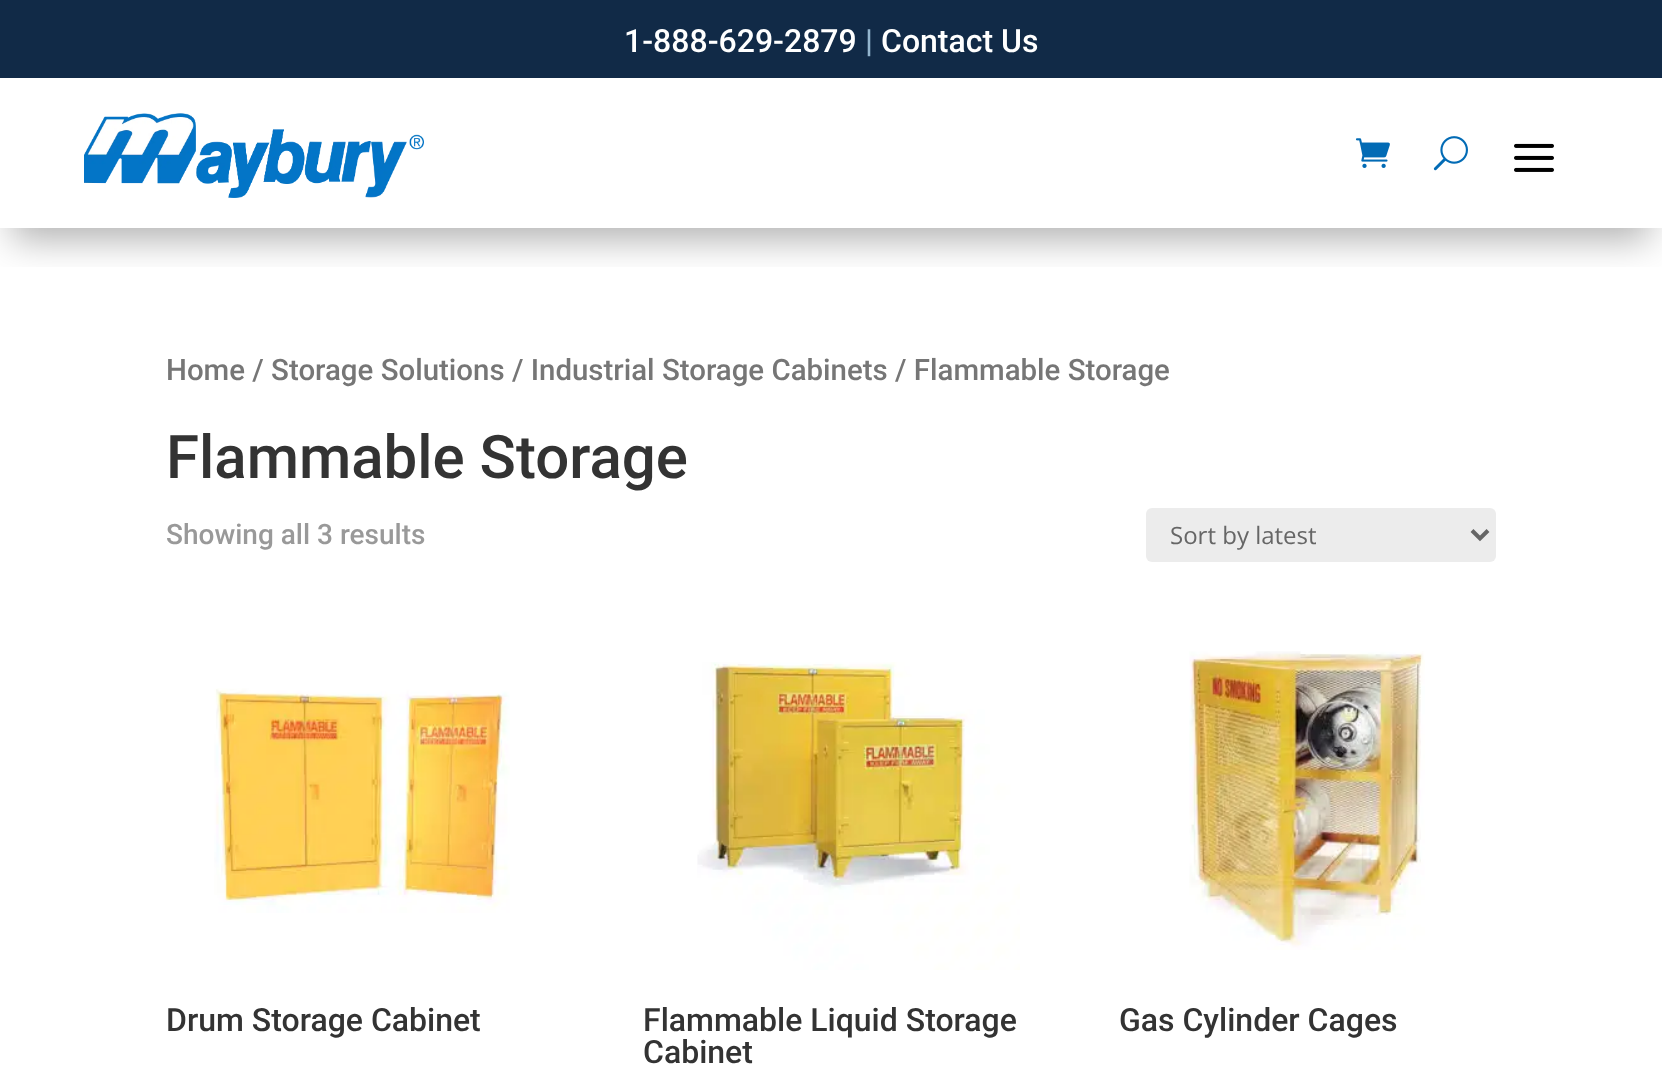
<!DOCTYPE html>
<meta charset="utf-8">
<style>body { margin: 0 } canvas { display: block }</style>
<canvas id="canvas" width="1662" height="1075"></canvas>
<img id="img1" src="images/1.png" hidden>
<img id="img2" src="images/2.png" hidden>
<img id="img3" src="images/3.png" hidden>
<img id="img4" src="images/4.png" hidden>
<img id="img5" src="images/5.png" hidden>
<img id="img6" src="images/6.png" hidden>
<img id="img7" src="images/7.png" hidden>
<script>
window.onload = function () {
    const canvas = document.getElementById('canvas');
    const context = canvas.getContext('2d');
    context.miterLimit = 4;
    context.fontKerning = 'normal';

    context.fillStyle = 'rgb(255, 255, 255)';
    context.fillRect(0, 0, 1662, 1075);
    context.fillStyle = 'rgb(17, 42, 71)';
    context.fillRect(0, 0, 1662, 78);
    context.save();
    context.beginPath();
    context.rect(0, 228, 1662, 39);
    context.clip();
    context.fillStyle = 'rgba(0, 0, 0, 0.3)';
    context.filter = 'blur(18px)';
    context.beginPath();
    context.rect(12, 114, 1638, 126);
    context.fill();
    context.filter = 'none';
    context.restore();
    context.drawImage(document.getElementById('img1'), 84, 113, 340, 85);
    context.drawImage(document.getElementById('img2'), 1355, 138, 35, 30);
    context.drawImage(document.getElementById('img3'), 1433, 136, 35, 35);
    context.drawImage(document.getElementById('img4'), 1514, 143, 40, 29);
    context.fillStyle = 'rgb(236, 236, 236)';
    context.beginPath();
    context.roundRect(1146, 508, 350, 54, 6);
    context.fill();
    context.beginPath();
    context.moveTo(1472, 530.5);
    context.lineTo(1480, 538.5);
    context.lineTo(1488, 530.5);
    context.strokeStyle = 'rgb(102, 102, 102)';
    context.lineWidth = 4;
    context.stroke();
    context.drawImage(document.getElementById('img5'), 214, 688, 296, 225);
    context.drawImage(document.getElementById('img6'), 697, 662, 323, 308);
    context.drawImage(document.getElementById('img7'), 1189, 651, 236, 299);
    context.font = '500 32px Roboto';
    context.fillStyle = 'rgb(255, 255, 255)';
    context.fillText('1-888-629-2879', 624, 52);
    context.fillStyle = 'rgb(147, 181, 206)';
    context.fillText('|', 865, 52);
    context.fillStyle = 'rgb(255, 255, 255)';
    context.fillText('Contact Us', 881, 52);
    context.font = '500 29.45px Roboto';
    context.fillStyle = 'rgb(118, 118, 118)';
    context.fillText('Home / Storage Solutions / Industrial Storage Cabinets / Flammable Storage', 166, 380);
    context.font = '500 60px Roboto';
    context.fillStyle = 'rgb(51, 51, 51)';
    context.fillText('Flammable Storage', 166, 478);
    context.font = '500 28px Roboto';
    context.fillStyle = 'rgb(153, 153, 153)';
    context.fillText('Showing all 3 results', 166, 544);
    context.font = '24px Open Sans';
    context.fillStyle = 'rgb(102, 102, 102)';
    context.fillText('Sort by latest', 1170, 544);
    context.font = '500 32px Roboto';
    context.fillStyle = 'rgb(51, 51, 51)';
    context.fillText('Drum Storage Cabinet', 166, 1031);
    context.fillText('Flammable Liquid Storage', 643, 1031);
    context.fillText('Cabinet', 643, 1063);
    context.fillText('Gas Cylinder Cages', 1119, 1031);
};
</script>
